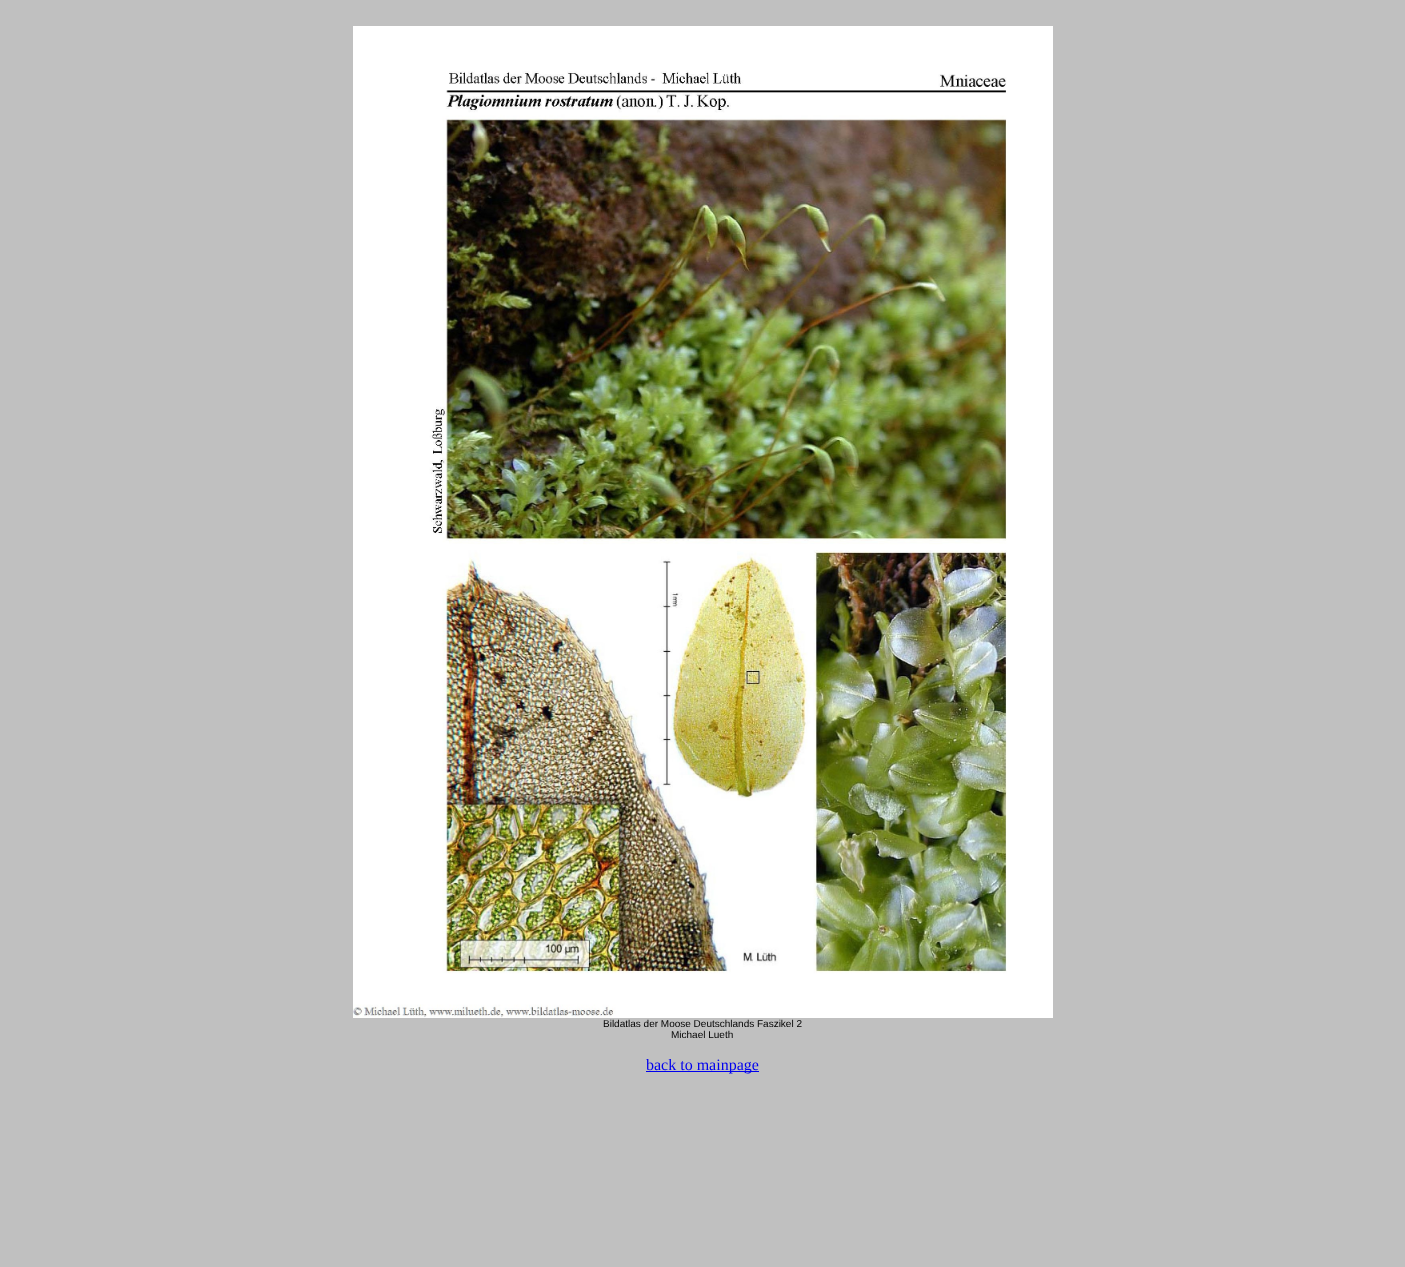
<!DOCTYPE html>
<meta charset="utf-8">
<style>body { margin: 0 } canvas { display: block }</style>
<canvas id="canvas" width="1405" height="1267"></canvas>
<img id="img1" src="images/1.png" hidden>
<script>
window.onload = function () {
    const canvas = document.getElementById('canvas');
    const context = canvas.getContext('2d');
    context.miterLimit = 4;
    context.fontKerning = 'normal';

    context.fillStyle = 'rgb(192, 192, 192)';
    context.fillRect(0, 0, 1405, 1267);
    context.drawImage(document.getElementById('img1'), 353, 26, 700, 992);
    context.fillStyle = 'rgb(0, 0, 238)';
    context.fillRect(646, 1071, 113, 1);
    context.font = '10px Liberation Sans';
    context.fillStyle = 'rgb(0, 0, 0)';
    context.fillText('Bildatlas der Moose Deutschlands Faszikel 2', 603, 1027);
    context.fillText('Michael Lueth', 671, 1038);
    context.font = '16px Liberation Serif';
    context.fillStyle = 'rgb(0, 0, 238)';
    context.fillText('back to mainpage', 646, 1070);
};
</script>
